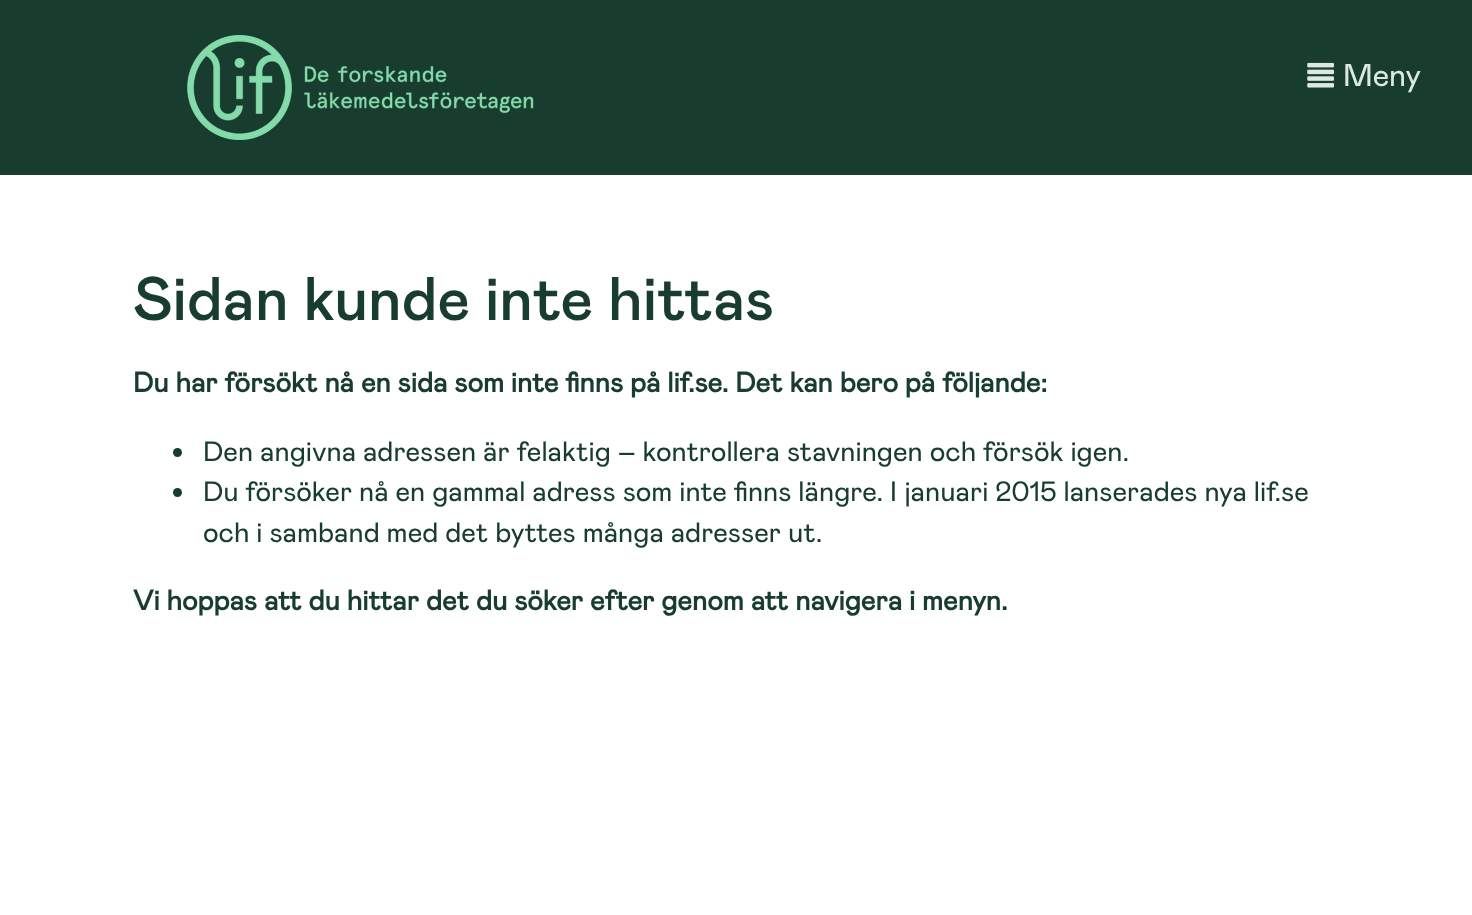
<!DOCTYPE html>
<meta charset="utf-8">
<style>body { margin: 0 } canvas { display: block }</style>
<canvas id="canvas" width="1472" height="915"></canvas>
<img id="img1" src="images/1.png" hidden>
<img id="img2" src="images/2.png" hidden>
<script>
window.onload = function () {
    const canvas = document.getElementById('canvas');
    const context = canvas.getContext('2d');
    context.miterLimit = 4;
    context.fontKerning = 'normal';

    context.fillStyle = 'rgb(255, 255, 255)';
    context.fillRect(0, 0, 1472, 915);
    context.fillStyle = 'rgb(24, 61, 46)';
    context.fillRect(0, 0, 1472, 175);
    context.drawImage(document.getElementById('img1'), 187, 35, 347, 105);
    context.drawImage(document.getElementById('img2'), 1307, 62, 28, 26);
    context.beginPath();
    context.arc(177.5, 452.5, 4.5, 0, 2 * Math.PI);
    context.fill();
    context.beginPath();
    context.arc(177.5, 492.5, 4.5, 0, 2 * Math.PI);
    context.fill();
    context.font = '31.5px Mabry';
    context.fillStyle = 'rgb(220, 233, 227)';
    context.fillText('Meny', 1343, 86);
    context.font = '500 61.6px Mabry';
    context.fillStyle = 'rgb(24, 61, 46)';
    context.fillText('Sidan kunde inte hittas', 133, 320);
    context.font = 'bold 28px Mabry';
    context.fillText('Du har försökt nå en sida som inte finns på lif.se. Det kan bero på följande:', 133, 392);
    context.font = '28px Mabry';
    context.fillText('Den angivna adressen är felaktig – kontrollera stavningen och försök igen.', 203, 461);
    context.fillText('Du försöker nå en gammal adress som inte finns längre. I januari 2015 lanserades nya lif.se', 203, 501);
    context.fillText('och i samband med det byttes många adresser ut.', 203, 542);
    context.font = 'bold 28px Mabry';
    context.fillText('Vi hoppas att du hittar det du söker efter genom att navigera i menyn.', 133, 610);
};
</script>
